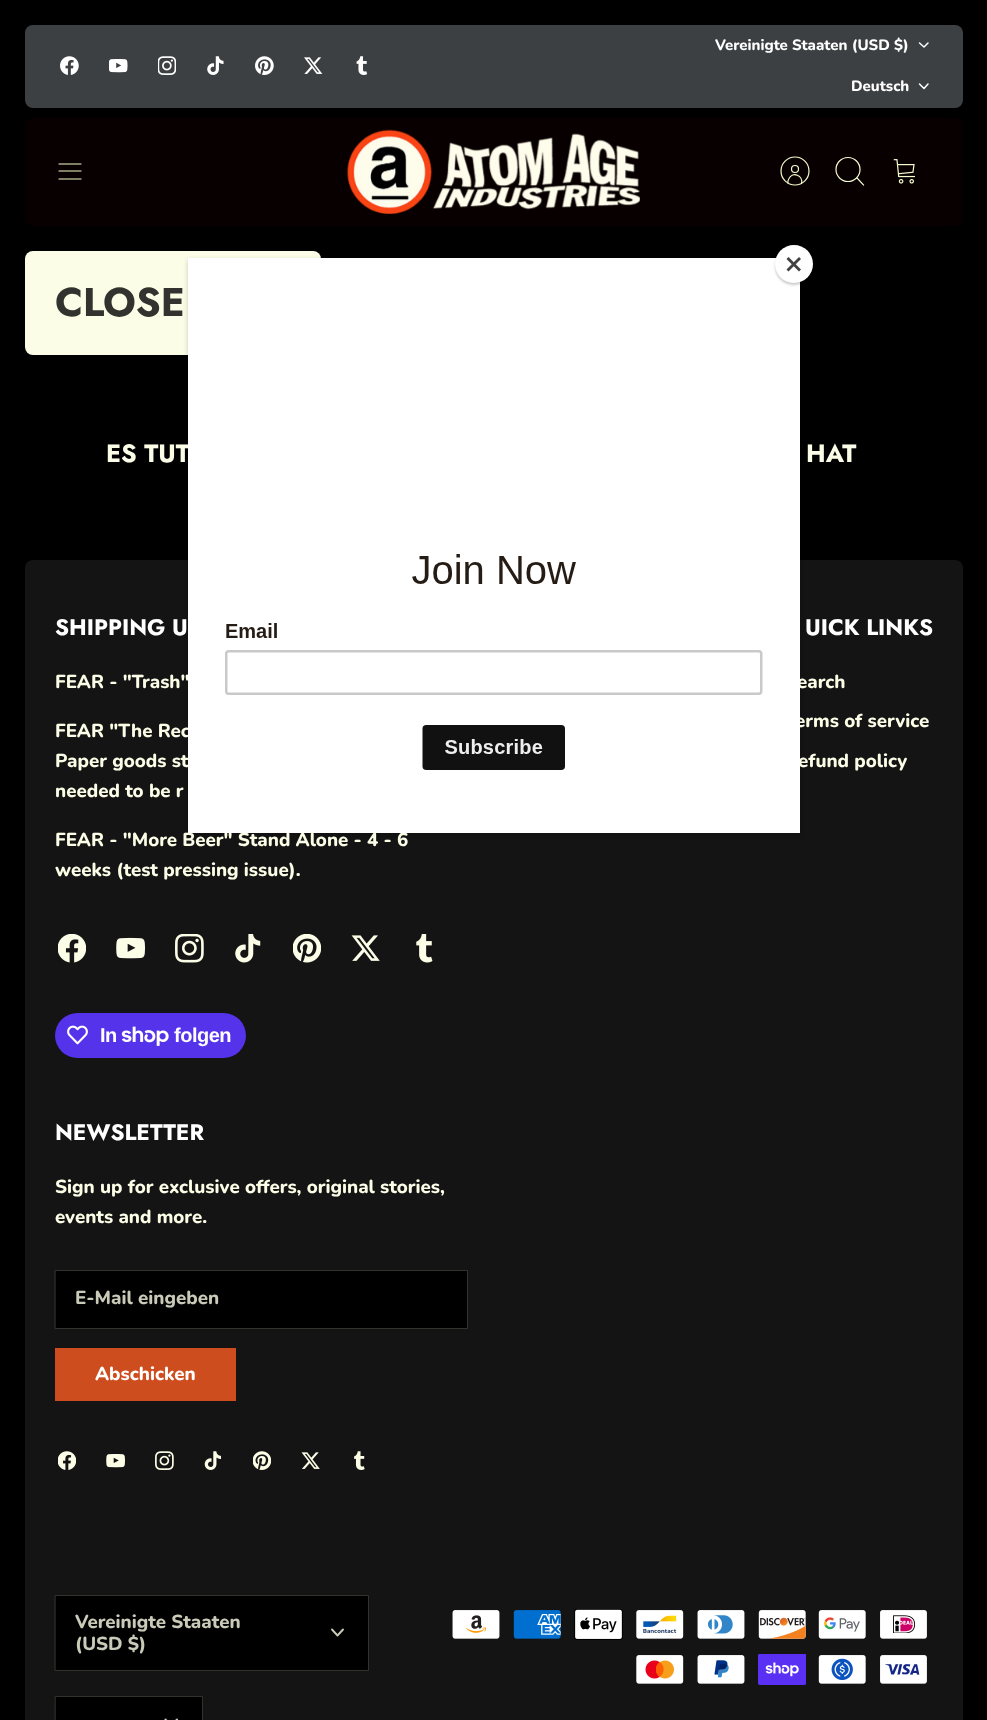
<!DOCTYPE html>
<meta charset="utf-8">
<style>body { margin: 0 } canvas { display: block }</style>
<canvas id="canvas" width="987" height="1720"></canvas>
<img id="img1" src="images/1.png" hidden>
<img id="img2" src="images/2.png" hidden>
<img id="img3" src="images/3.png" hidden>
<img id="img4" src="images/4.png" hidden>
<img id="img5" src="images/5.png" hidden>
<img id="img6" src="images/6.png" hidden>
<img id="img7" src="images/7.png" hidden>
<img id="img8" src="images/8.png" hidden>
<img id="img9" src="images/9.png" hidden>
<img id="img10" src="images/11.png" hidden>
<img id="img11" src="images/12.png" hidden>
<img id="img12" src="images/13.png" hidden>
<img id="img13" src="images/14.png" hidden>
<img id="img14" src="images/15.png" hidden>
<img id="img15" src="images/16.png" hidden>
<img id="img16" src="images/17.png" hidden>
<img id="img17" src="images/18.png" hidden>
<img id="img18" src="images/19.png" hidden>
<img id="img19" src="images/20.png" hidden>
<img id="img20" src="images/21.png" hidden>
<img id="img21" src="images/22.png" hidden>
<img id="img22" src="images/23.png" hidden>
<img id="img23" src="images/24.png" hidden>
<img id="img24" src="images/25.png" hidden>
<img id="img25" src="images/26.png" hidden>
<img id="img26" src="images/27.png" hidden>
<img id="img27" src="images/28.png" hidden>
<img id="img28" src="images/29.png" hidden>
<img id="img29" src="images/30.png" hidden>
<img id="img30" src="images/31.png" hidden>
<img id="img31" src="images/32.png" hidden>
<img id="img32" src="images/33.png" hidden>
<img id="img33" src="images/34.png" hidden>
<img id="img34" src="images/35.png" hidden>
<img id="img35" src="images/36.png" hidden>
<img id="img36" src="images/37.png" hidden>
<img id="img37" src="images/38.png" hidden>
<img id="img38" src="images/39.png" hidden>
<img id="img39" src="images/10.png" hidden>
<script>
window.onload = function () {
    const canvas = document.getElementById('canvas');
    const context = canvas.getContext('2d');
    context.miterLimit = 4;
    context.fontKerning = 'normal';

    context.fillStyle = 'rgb(0, 0, 0)';
    context.fillRect(0, 0, 987, 1720);
    context.fillStyle = 'rgb(60, 64, 67)';
    context.beginPath();
    context.roundRect(25, 25, 938, 83, 8);
    context.fill();
    context.drawImage(document.getElementById('img1'), 60, 56, 19, 19);
    context.drawImage(document.getElementById('img2'), 109, 59, 19, 14);
    context.drawImage(document.getElementById('img3'), 158, 56, 18, 19);
    context.drawImage(document.getElementById('img4'), 207, 56, 17, 19);
    context.drawImage(document.getElementById('img5'), 255, 56, 19, 19);
    context.drawImage(document.getElementById('img6'), 304, 57, 19, 17);
    context.drawImage(document.getElementById('img7'), 356, 56, 12, 19);
    context.beginPath();
    context.moveTo(919.5, 43);
    context.lineTo(924, 47);
    context.lineTo(928, 43);
    context.strokeStyle = 'rgb(255, 255, 255)';
    context.lineWidth = 1.5;
    context.lineCap = 'round';
    context.lineJoin = 'round';
    context.stroke();
    context.beginPath();
    context.moveTo(919.5, 84);
    context.lineTo(924, 88.5);
    context.lineTo(928, 84);
    context.stroke();
    context.fillStyle = 'rgb(8, 0, 0)';
    context.beginPath();
    context.roundRect(25, 118, 938, 108, 8);
    context.fill();
    context.beginPath();
    context.moveTo(59, 171);
    context.lineTo(81, 171);
    context.moveTo(59, 164);
    context.lineTo(81, 164);
    context.moveTo(59, 179);
    context.lineTo(81, 179);
    context.strokeStyle = 'rgb(244, 253, 206)';
    context.lineWidth = 1.2;
    context.stroke();
    context.drawImage(document.getElementById('img8'), 347, 129, 293, 85);
    context.beginPath();
    context.moveTo(801.5, 183.5);
    context.bezierCurveTo(803.5, 175.5, 792.5, 171, 789, 178.5);
    context.bezierCurveTo(788, 180, 787.5, 181.5, 788, 183.5);
    context.lineCap = 'butt';
    context.lineJoin = 'miter';
    context.stroke();
    context.beginPath();
    context.arc(795, 169, 3.5, 0, 2 * Math.PI);
    context.stroke();
    context.beginPath();
    context.arc(795, 171, 14, 0, 2 * Math.PI);
    context.stroke();
    context.beginPath();
    context.arc(848, 169.5, 12, 0, 2 * Math.PI);
    context.stroke();
    context.beginPath();
    context.moveTo(857, 178);
    context.lineTo(863.5, 185);
    context.lineCap = 'square';
    context.stroke();
    context.drawImage(document.getElementById('img9'), 893, 159, 22, 25);
    context.fillStyle = 'rgb(252, 253, 230)';
    context.beginPath();
    context.roundRect(25, 251, 296, 104, 8);
    context.fill();
    context.fillStyle = 'rgb(20, 20, 20)';
    context.beginPath();
    context.roundRect(25, 560, 938, 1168, 8);
    context.fill();
    context.fillStyle = 'rgba(0, 0, 0, 0.2)';
    context.filter = 'blur(2.5px)';
    context.beginPath();
    context.rect(188, 260, 612, 575);
    context.fill();
    context.filter = 'none';
    context.drawImage(document.getElementById('img10'), 58, 934, 28, 29);
    context.drawImage(document.getElementById('img11'), 116, 937, 29, 22);
    context.drawImage(document.getElementById('img12'), 175, 934, 29, 29);
    context.drawImage(document.getElementById('img13'), 235, 934, 26, 29);
    context.drawImage(document.getElementById('img14'), 293, 934, 28, 29);
    context.drawImage(document.getElementById('img15'), 351, 935, 29, 26);
    context.drawImage(document.getElementById('img16'), 416, 934, 17, 29);
    context.fillStyle = 'rgb(84, 51, 235)';
    context.beginPath();
    context.roundRect(55, 1013, 191, 45, 22.5);
    context.fill();
    context.drawImage(document.getElementById('img17'), 67, 1025, 21, 20);
    context.drawImage(document.getElementById('img18'), 121, 1026, 48, 20);
    context.fillStyle = 'rgb(0, 0, 0)';
    context.beginPath();
    context.rect(55.5, 1270.5, 412, 58);
    context.fill();
    context.strokeStyle = 'rgb(51, 51, 46)';
    context.lineWidth = 1;
    context.stroke();
    context.fillStyle = 'rgb(205, 77, 30)';
    context.fillRect(55, 1348, 181, 53);
    context.drawImage(document.getElementById('img19'), 58, 1451, 18, 19);
    context.drawImage(document.getElementById('img20'), 106, 1454, 19, 14);
    context.drawImage(document.getElementById('img21'), 155, 1451, 19, 19);
    context.drawImage(document.getElementById('img22'), 204, 1451, 18, 19);
    context.drawImage(document.getElementById('img23'), 253, 1451, 18, 19);
    context.drawImage(document.getElementById('img24'), 301, 1452, 19, 17);
    context.drawImage(document.getElementById('img25'), 354, 1451, 11, 19);
    context.fillStyle = 'rgb(0, 0, 0)';
    context.beginPath();
    context.rect(55.5, 1595.5, 313, 75);
    context.fill();
    context.stroke();
    context.beginPath();
    context.moveTo(332, 1629.5);
    context.lineTo(337.5, 1635.5);
    context.lineTo(343, 1629.5);
    context.strokeStyle = 'rgb(202, 202, 184)';
    context.lineWidth = 1.9;
    context.lineCap = 'round';
    context.lineJoin = 'round';
    context.stroke();
    context.beginPath();
    context.rect(55.5, 1696.5, 147, 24);
    context.fill();
    context.strokeStyle = 'rgb(51, 51, 46)';
    context.lineWidth = 1;
    context.lineJoin = 'miter';
    context.stroke();
    context.beginPath();
    context.moveTo(165.5, 1719.5);
    context.lineTo(171, 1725.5);
    context.lineTo(177, 1719.5);
    context.strokeStyle = 'rgb(202, 202, 184)';
    context.lineWidth = 1.9;
    context.lineJoin = 'round';
    context.stroke();
    context.drawImage(document.getElementById('img26'), 452, 1610, 48, 29);
    context.drawImage(document.getElementById('img27'), 513, 1610, 48, 29);
    context.drawImage(document.getElementById('img28'), 574, 1609, 49, 31);
    context.drawImage(document.getElementById('img29'), 636, 1610, 48, 29);
    context.drawImage(document.getElementById('img30'), 697, 1610, 48, 29);
    context.drawImage(document.getElementById('img31'), 758, 1610, 48, 29);
    context.drawImage(document.getElementById('img32'), 818, 1610, 48, 29);
    context.drawImage(document.getElementById('img33'), 880, 1610, 47, 29);
    context.drawImage(document.getElementById('img34'), 636, 1655, 48, 29);
    context.drawImage(document.getElementById('img35'), 697, 1655, 48, 29);
    context.drawImage(document.getElementById('img36'), 758, 1654, 48, 31);
    context.drawImage(document.getElementById('img37'), 818, 1655, 48, 29);
    context.drawImage(document.getElementById('img38'), 880, 1655, 47, 29);
    context.font = '800 15px Nunito';
    context.fillStyle = 'rgb(255, 255, 255)';
    context.fillText('Vereinigte Staaten (USD $)', 715, 50);
    context.fillText('Deutsch', 851, 91);
    context.font = 'bold 40px Jost';
    context.fillStyle = 'rgb(50, 51, 46)';
    context.fillText('CLOSE', 55, 316);
    context.font = 'bold 25px Jost';
    context.fillStyle = 'rgb(252, 253, 230)';
    context.fillText('ES TUT', 106, 462);
    context.fillText('HAT', 806, 462);
    context.font = 'bold 22.5px Jost';
    context.fillStyle = 'rgb(255, 255, 255)';
    context.fillText('SHIPPING U', 55, 635);
    context.font = '800 18.75px Nunito';
    context.fillStyle = 'rgb(252, 253, 230)';
    context.fillText('FEAR - "Trash"', 55, 688);
    context.fillText('FEAR "The Rec', 55, 737);
    context.fillText('Paper goods st', 55, 767);
    context.fillText('needed to be r', 55, 797);
    context.fillText('FEAR - "More Beer" Stand Alone - 4 - 6', 55, 846);
    context.fillText('weeks (test pressing issue).', 55, 876);
    context.letterSpacing = '-0.5px';
    context.font = 'bold 20px Liberation Sans';
    context.fillStyle = 'rgb(255, 255, 255)';
    context.fillText('In', 100, 1042);
    context.fillText('folgen', 174, 1042);
    context.letterSpacing = '0px';
    context.font = 'bold 22.5px Jost';
    context.fillText('UICK LINKS', 805, 635);
    context.font = '800 18.75px Nunito';
    context.fillStyle = 'rgb(252, 253, 230)';
    context.fillText('earch', 797, 688);
    context.fillText('erms of service', 795, 727);
    context.fillText('efund policy', 798, 767);
    context.drawImage(document.getElementById('img39'), 188, 258, 612, 575);
    context.fillStyle = 'rgba(0, 0, 0, 0.2)';
    context.filter = 'blur(1px)';
    context.beginPath();
    context.roundRect(775, 248, 38, 37, 18.5);
    context.fill();
    context.filter = 'none';
    context.fillStyle = 'rgb(255, 255, 255)';
    context.beginPath();
    context.arc(794, 264, 19, 0, 2 * Math.PI);
    context.fill();
    context.fillStyle = 'rgb(65, 65, 65)';
    context.beginPath();
    context.moveTo(799, 257);
    context.lineTo(801, 259);
    context.lineTo(788.5, 271.5);
    context.lineTo(786.5, 269.5);
    context.closePath();
    context.fill();
    context.beginPath();
    context.moveTo(786.5, 259);
    context.lineTo(788.5, 257);
    context.lineTo(801, 269.5);
    context.lineTo(799, 271.5);
    context.closePath();
    context.fill();
    context.font = 'bold 22.5px Jost';
    context.fillStyle = 'rgb(255, 255, 255)';
    context.fillText('NEWSLETTER', 55, 1140);
    context.font = '800 18.75px Nunito';
    context.fillStyle = 'rgb(252, 253, 230)';
    context.fillText('Sign up for exclusive offers, original stories,', 55, 1193);
    context.fillText('events and more.', 55, 1223);
    context.fillStyle = 'rgb(202, 202, 184)';
    context.fillText('E-Mail eingeben', 75, 1304);
    context.fillStyle = 'rgb(255, 255, 255)';
    context.fillText('Abschicken', 95, 1380);
    context.fillStyle = 'rgb(202, 202, 184)';
    context.fillText('Vereinigte Staaten', 75, 1628);
    context.fillText('(USD $)', 75, 1650);
};
</script>
